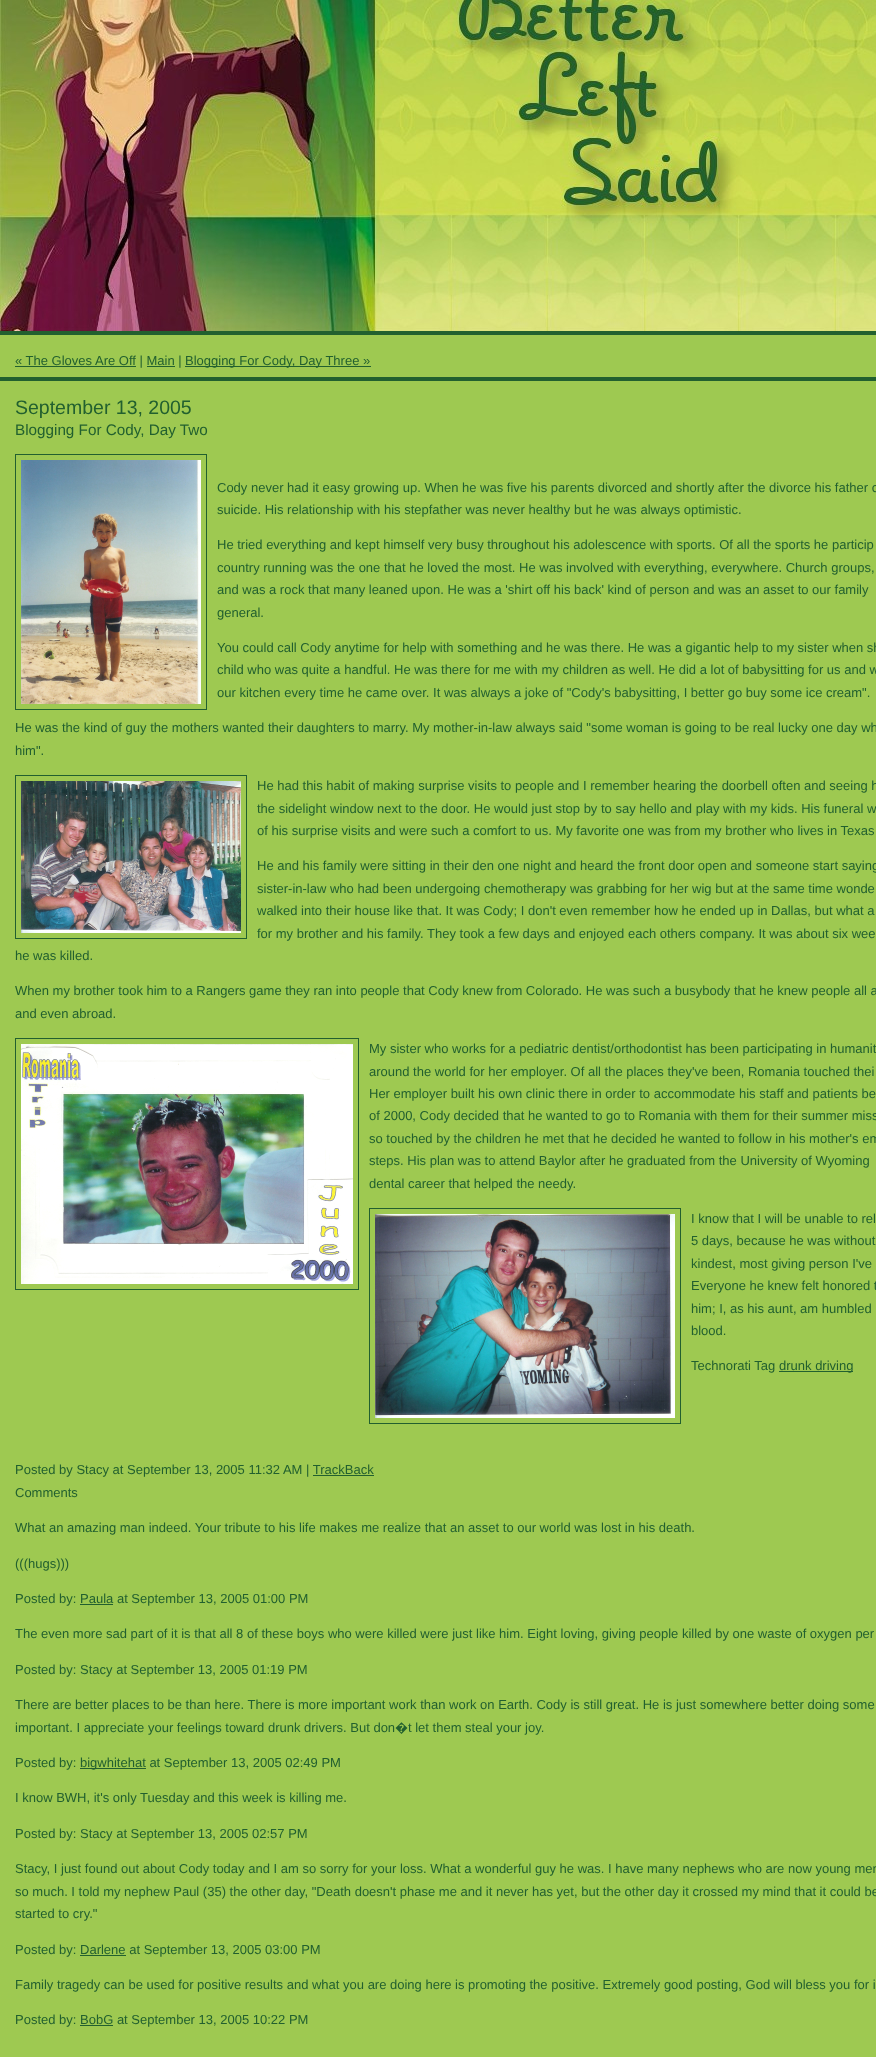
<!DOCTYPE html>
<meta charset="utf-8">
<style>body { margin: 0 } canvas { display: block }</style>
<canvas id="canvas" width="876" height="2057"></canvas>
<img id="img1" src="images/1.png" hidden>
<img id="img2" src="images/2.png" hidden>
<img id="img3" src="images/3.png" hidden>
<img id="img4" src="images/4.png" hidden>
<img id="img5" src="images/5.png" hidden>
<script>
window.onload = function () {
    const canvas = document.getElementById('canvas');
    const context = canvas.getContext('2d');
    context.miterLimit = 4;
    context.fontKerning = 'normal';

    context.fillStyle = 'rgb(158, 201, 81)';
    context.fillRect(0, 0, 876, 2057);
    context.drawImage(document.getElementById('img1'), 0, 0, 876, 331);
    context.fillStyle = 'rgb(34, 96, 47)';
    context.fillRect(0, 331, 876, 4);
    context.fillRect(15, 366, 121, 1);
    context.fillRect(185, 366, 186, 1);
    context.fillRect(147, 366, 28, 1);
    context.fillRect(0, 377, 876, 4);
    context.strokeStyle = 'rgb(34, 96, 47)';
    context.strokeRect(15.5, 454.5, 191, 255);
    context.drawImage(document.getElementById('img2'), 21, 460, 180, 244);
    context.strokeRect(15.5, 775.5, 231, 163);
    context.drawImage(document.getElementById('img3'), 21, 781, 220, 152);
    context.strokeRect(15.5, 1038.5, 343, 251);
    context.drawImage(document.getElementById('img4'), 21, 1044, 332, 240);
    context.strokeRect(369.5, 1208.5, 311, 215);
    context.drawImage(document.getElementById('img5'), 375, 1214, 300, 204);
    context.fillRect(779, 1371, 74, 1);
    context.fillRect(313, 1475, 61, 1);
    context.fillRect(80, 1604, 33, 1);
    context.fillRect(80, 1768, 66, 1);
    context.fillRect(80, 1955, 46, 1);
    context.fillRect(80, 2025, 33, 1);
    context.font = '13px Liberation Sans';
    context.fillText('« The Gloves Are Off | Main |', 15, 365);
    context.fillText('Blogging For Cody, Day Three »', 185, 365);
    context.font = '19.5px Liberation Sans';
    context.fillText('September 13, 2005', 15, 414);
    context.font = '15.25px Liberation Sans';
    context.fillText('Blogging For Cody, Day Two', 15, 435);
    context.font = '13px Liberation Sans';
    context.fillText('Cody never had it easy growing up. When he was five his parents divorced and shortly after the divorce his father c', 217, 492);
    context.fillText('suicide. His relationship with his stepfather was never healthy but he was always optimistic.', 217, 514);
    context.fillText('He tried everything and kept himself very busy throughout his adolescence with sports. Of all the sports he particip', 217, 549);
    context.fillText('country running was the one that he loved the most. He was involved with everything, everywhere. Church groups,', 217, 572);
    context.fillText('and was a rock that many leaned upon. He was a \'shirt off his back\' kind of person and was an asset to our family', 217, 594);
    context.fillText('general.', 217, 617);
    context.fillText('You could call Cody anytime for help with something and he was there. He was a gigantic help to my sister when sh', 217, 652);
    context.fillText('child who was quite a handful. He was there for me with my children as well. He did a lot of babysitting for us and w', 217, 674);
    context.fillText('our kitchen every time he came over. It was always a joke of "Cody\'s babysitting, I better go buy some ice cream".', 217, 697);
    context.fillText('He was the kind of guy the mothers wanted their daughters to marry. My mother-in-law always said "some woman is going to be real lucky one day wh', 15, 732);
    context.fillText('him".', 15, 755);
    context.fillText('He had this habit of making surprise visits to people and I remember hearing the doorbell often and seeing h', 257, 790);
    context.fillText('the sidelight window next to the door. He would just stop by to say hello and play with my kids. His funeral w', 257, 813);
    context.fillText('of his surprise visits and were such a comfort to us. My favorite one was from my brother who lives in Texas', 257, 835);
    context.fillText('He and his family were sitting in their den one night and heard the front door open and someone start saying', 257, 870);
    context.fillText('sister-in-law who had been undergoing chemotherapy was grabbing for her wig but at the same time wonde', 257, 893);
    context.fillText('walked into their house like that. It was Cody; I don\'t even remember how he ended up in Dallas, but what a', 257, 915);
    context.fillText('for my brother and his family. They took a few days and enjoyed each others company. It was about six wee', 257, 938);
    context.fillText('he was killed.', 15, 960);
    context.fillText('When my brother took him to a Rangers game they ran into people that Cody knew from Colorado. He was such a busybody that he knew people all a', 15, 995);
    context.fillText('and even abroad.', 15, 1018);
    context.fillText('My sister who works for a pediatric dentist/orthodontist has been participating in humanit', 369, 1053);
    context.fillText('around the world for her employer. Of all the places they\'ve been, Romania touched thei', 369, 1076);
    context.fillText('Her employer built his own clinic there in order to accommodate his staff and patients be', 369, 1098);
    context.fillText('of 2000, Cody decided that he wanted to go to Romania with them for their summer miss', 369, 1120);
    context.fillText('so touched by the children he met that he decided he wanted to follow in his mother\'s em', 369, 1143);
    context.fillText('steps. His plan was to attend Baylor after he graduated from the University of Wyoming', 369, 1165);
    context.fillText('dental career that helped the needy.', 369, 1188);
    context.fillText('I know that I will be unable to rel', 691, 1223);
    context.fillText('5 days, because he was without', 691, 1245);
    context.fillText('kindest, most giving person I\'ve', 691, 1268);
    context.fillText('Everyone he knew felt honored t', 691, 1290);
    context.fillText('him; I, as his aunt, am humbled', 691, 1313);
    context.fillText('blood.', 691, 1335);
    context.fillText('Technorati Tag', 691, 1370);
    context.fillText('drunk driving', 779, 1370);
    context.fillText('Posted by Stacy at September 13, 2005 11:32 AM | TrackBack', 15, 1474);
    context.fillText('Comments', 15, 1497);
    context.fillText('What an amazing man indeed. Your tribute to his life makes me realize that an asset to our world was lost in his death.', 15, 1532);
    context.fillText('(((hugs)))', 15, 1568);
    context.fillText('Posted by: Paula at September 13, 2005 01:00 PM', 15, 1603);
    context.fillText('The even more sad part of it is that all 8 of these boys who were killed were just like him. Eight loving, giving people killed by one waste of oxygen per', 15, 1638);
    context.fillText('Posted by: Stacy at September 13, 2005 01:19 PM', 15, 1674);
    context.fillText('There are better places to be than here. There is more important work than work on Earth. Cody is still great. He is just somewhere better doing some', 15, 1709);
    context.fillText('important. I appreciate your feelings toward drunk drivers. But don', 15, 1732);
    context.font = '13px Noto Sans';
    context.fillText('�', 395, 1732);
    context.font = '13px Liberation Sans';
    context.fillText('t let them steal your joy.', 408, 1732);
    context.fillText('Posted by:', 15, 1767);
    context.fillText('bigwhitehat at September 13, 2005 02:49 PM', 80, 1767);
    context.fillText('I know BWH, it\'s only Tuesday and this week is killing me.', 15, 1802);
    context.fillText('Posted by: Stacy at September 13, 2005 02:57 PM', 15, 1838);
    context.fillText('Stacy, I just found out about Cody today and I am so sorry for your loss. What a wonderful guy he was. I have many nephews who are now young men', 15, 1873);
    context.fillText('so much. I told my nephew Paul (35) the other day, "Death doesn\'t phase me and it never has yet, but the other day it crossed my mind that it could be', 15, 1896);
    context.fillText('started to cry."', 15, 1918);
    context.fillText('Posted by: Darlene at September 13, 2005 03:00 PM', 15, 1954);
    context.fillText('Family tragedy can be used for positive results and what you are doing here is promoting the positive. Extremely good posting, God will bless you for i', 15, 1989);
    context.fillText('Posted by: BobG at September 13, 2005 10:22 PM', 15, 2024);
};
</script>
